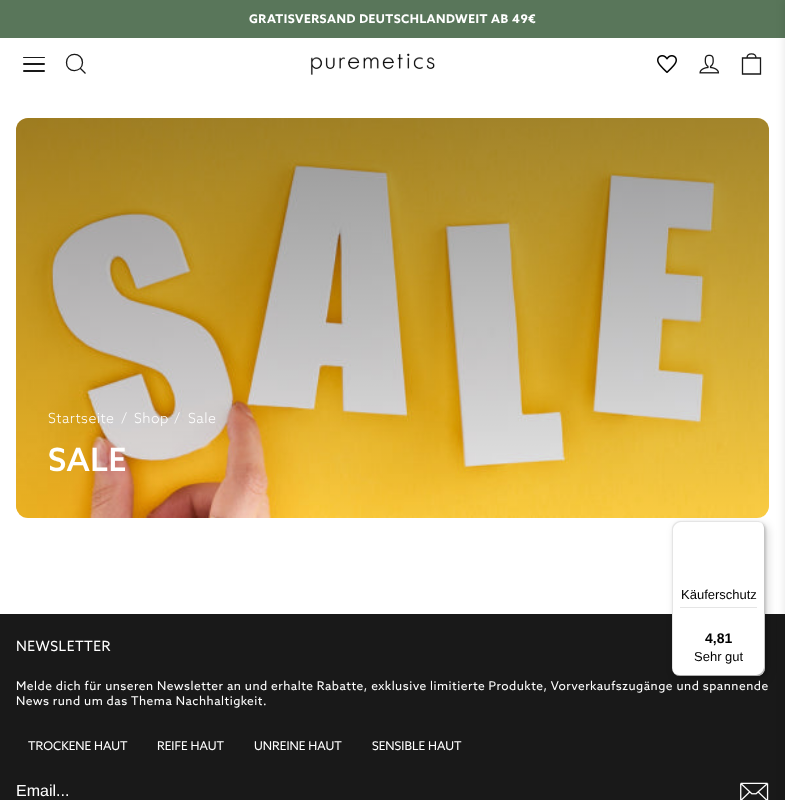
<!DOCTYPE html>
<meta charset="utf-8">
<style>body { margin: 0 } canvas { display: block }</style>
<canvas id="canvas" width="785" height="800"></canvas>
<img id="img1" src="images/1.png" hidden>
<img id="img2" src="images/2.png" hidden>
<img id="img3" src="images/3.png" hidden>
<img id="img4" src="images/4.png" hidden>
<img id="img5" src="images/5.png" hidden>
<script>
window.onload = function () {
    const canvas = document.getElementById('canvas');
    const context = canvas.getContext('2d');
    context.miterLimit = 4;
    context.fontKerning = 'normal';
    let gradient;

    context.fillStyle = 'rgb(255, 255, 255)';
    context.fillRect(0, 0, 785, 800);
    context.fillStyle = 'rgb(89, 118, 90)';
    context.fillRect(0, 0, 785, 38);
    context.fillStyle = 'rgb(25, 25, 25)';
    context.beginPath();
    context.roundRect(23, 57, 22, 1, 0.5);
    context.fill();
    context.beginPath();
    context.roundRect(23, 63, 22, 2, 1);
    context.fill();
    context.beginPath();
    context.roundRect(23, 70, 22, 2, 1);
    context.fill();
    context.beginPath();
    context.moveTo(85.5, 73.5);
    context.lineTo(80.5, 68.5);
    context.moveTo(82.5, 62.5);
    context.bezierCurveTo(82.5, 73.5, 66, 73, 66.5, 62.5);
    context.bezierCurveTo(66.5, 51.5, 82.5, 52, 82.5, 62.5);
    context.closePath();
    context.strokeStyle = 'rgb(25, 25, 25)';
    context.lineWidth = 1.3;
    context.stroke();
    context.drawImage(document.getElementById('img1'), 310, 53, 125, 22);
    context.drawImage(document.getElementById('img2'), 657, 55, 20, 18);
    context.drawImage(document.getElementById('img3'), 699, 54, 21, 20);
    context.beginPath();
    context.moveTo(742.5, 58);
    context.lineTo(760.5, 58);
    context.lineTo(760.5, 74);
    context.lineTo(742.5, 74);
    context.closePath();
    context.moveTo(747, 58);
    context.bezierCurveTo(747, 52.5, 756, 52.5, 756, 58);
    context.stroke();
    context.fillRect(0, 614, 785, 186);
    context.fillStyle = 'rgba(0, 0, 0, 0.1)';
    context.filter = 'blur(5px)';
    context.beginPath();
    context.rect(785, 0, 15, 800);
    context.fill();
    context.filter = 'none';
    context.drawImage(document.getElementById('img4'), 16, 118, 753, 400);
    gradient = context.createLinearGradient(393, 518, 393, 118);
    gradient.addColorStop(0, 'rgba(0, 0, 0, 0)');
    gradient.addColorStop(1, 'rgba(0, 0, 0, 0.35)');
    context.fillStyle = gradient;
    context.beginPath();
    context.roundRect(16, 118, 753, 400, 12);
    context.fill();
    context.fillStyle = 'rgba(0, 0, 0, 0.15)';
    context.filter = 'blur(4px)';
    context.beginPath();
    context.roundRect(675, 524, 93, 155, 8);
    context.fill();
    context.filter = 'none';
    context.filter = 'blur(1px)';
    context.beginPath();
    context.roundRect(673, 522, 93, 155, 8);
    context.fill();
    context.filter = 'none';
    context.fillStyle = 'rgb(255, 255, 255)';
    context.beginPath();
    context.roundRect(672, 521, 93, 155, 8);
    context.fill();
    context.fillStyle = 'rgba(0, 0, 0, 0.1)';
    context.beginPath();
    context.moveTo(681, 522);
    context.lineTo(758, 522);
    context.bezierCurveTo(760, 522, 762, 523, 764, 525);
    context.bezierCurveTo(762, 523, 760, 521, 757, 521);
    context.lineTo(680, 521);
    context.bezierCurveTo(676, 521, 672, 525, 672, 529);
    context.lineTo(672, 668);
    context.bezierCurveTo(672, 671, 674, 673, 676, 675);
    context.bezierCurveTo(674, 673, 673, 671, 673, 669);
    context.lineTo(673, 530);
    context.bezierCurveTo(673, 526, 677, 522, 681, 522);
    context.closePath();
    context.fill();
    context.fillStyle = 'rgba(0, 0, 0, 0.2)';
    context.beginPath();
    context.moveTo(673, 672);
    context.bezierCurveTo(675, 674, 677, 676, 680, 676);
    context.lineTo(757, 676);
    context.bezierCurveTo(761, 676, 765, 672, 765, 668);
    context.lineTo(765, 529);
    context.bezierCurveTo(765, 526, 763, 524, 761, 522);
    context.bezierCurveTo(763, 524, 764, 526, 764, 528);
    context.lineTo(764, 667);
    context.bezierCurveTo(764, 671, 760, 675, 756, 675);
    context.lineTo(679, 675);
    context.bezierCurveTo(677, 675, 675, 674, 673, 672);
    context.closePath();
    context.fill();
    context.fillStyle = 'rgba(50, 50, 50, 0.2)';
    context.beginPath();
    context.moveTo(674, 673);
    context.bezierCurveTo(675, 675, 678, 676, 680, 676);
    context.lineTo(757, 676);
    context.bezierCurveTo(761, 676, 765, 672, 765, 668);
    context.lineTo(765, 529);
    context.bezierCurveTo(765, 527, 764, 524, 762, 523);
    context.bezierCurveTo(763, 524, 764, 526, 764, 528);
    context.lineTo(764, 667);
    context.bezierCurveTo(764, 672, 761, 675, 756, 675);
    context.lineTo(679, 675);
    context.bezierCurveTo(677, 675, 675, 674, 674, 673);
    context.closePath();
    context.fill();
    context.fillStyle = 'rgba(255, 255, 255, 0.3)';
    context.beginPath();
    context.moveTo(756, 676);
    context.lineTo(757, 676);
    context.bezierCurveTo(761, 676, 765, 672, 765, 668);
    context.lineTo(765, 529);
    context.bezierCurveTo(765, 527, 764, 524, 762, 523);
    context.bezierCurveTo(763, 524, 764, 526, 764, 528);
    context.lineTo(764, 668);
    context.bezierCurveTo(764, 672, 761, 676, 756, 676);
    context.closePath();
    context.fill();
    context.fillStyle = 'rgb(229, 229, 229)';
    context.fillRect(680, 607, 77, 1);
    context.drawImage(document.getElementById('img5'), 740, 782, 29, 18);
    context.letterSpacing = '0.5px';
    context.font = 'bold 12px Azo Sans';
    context.fillStyle = 'rgb(255, 255, 255)';
    context.fillText('GRATISVERSAND DEUTSCHLANDWEIT AB 49€', 249, 23);
    context.font = '300 14px Azo Sans';
    context.fillText('Startseite', 48, 423);
    context.fillText('/', 121, 423);
    context.fillText('Shop', 134, 423);
    context.fillText('/', 174, 423);
    context.fillText('Sale', 188, 423);
    context.font = '500 32px Azo Sans';
    context.fillText('SALE', 48, 471);
    context.letterSpacing = '0px';
    context.font = '13px Liberation Sans';
    context.fillStyle = 'rgb(0, 0, 0)';
    context.fillText('Käuferschutz', 681, 599);
    context.font = 'bold 14px Liberation Sans';
    context.fillText('4,81', 705, 643);
    context.font = '13px Liberation Sans';
    context.fillText('Sehr gut', 694, 661);
    context.letterSpacing = '0.5px';
    context.font = '14px Azo Sans';
    context.fillStyle = 'rgb(255, 255, 255)';
    context.fillText('NEWSLETTER', 16, 651);
    context.font = '12px Azo Sans';
    context.fillText('Melde dich für unseren Newsletter an und erhalte Rabatte, exklusive limitierte Produkte, Vorverkaufszugänge und spannende', 16, 690);
    context.fillText('News rund um das Thema Nachhaltigkeit.', 16, 705);
    context.letterSpacing = '0px';
    context.fillText('TROCKENE HAUT', 28, 750);
    context.fillText('REIFE HAUT', 157, 750);
    context.fillText('UNREINE HAUT', 254, 750);
    context.fillText('SENSIBLE HAUT', 372, 750);
    context.font = '16px Liberation Sans';
    context.fillText('Email...', 16, 796);
};
</script>
